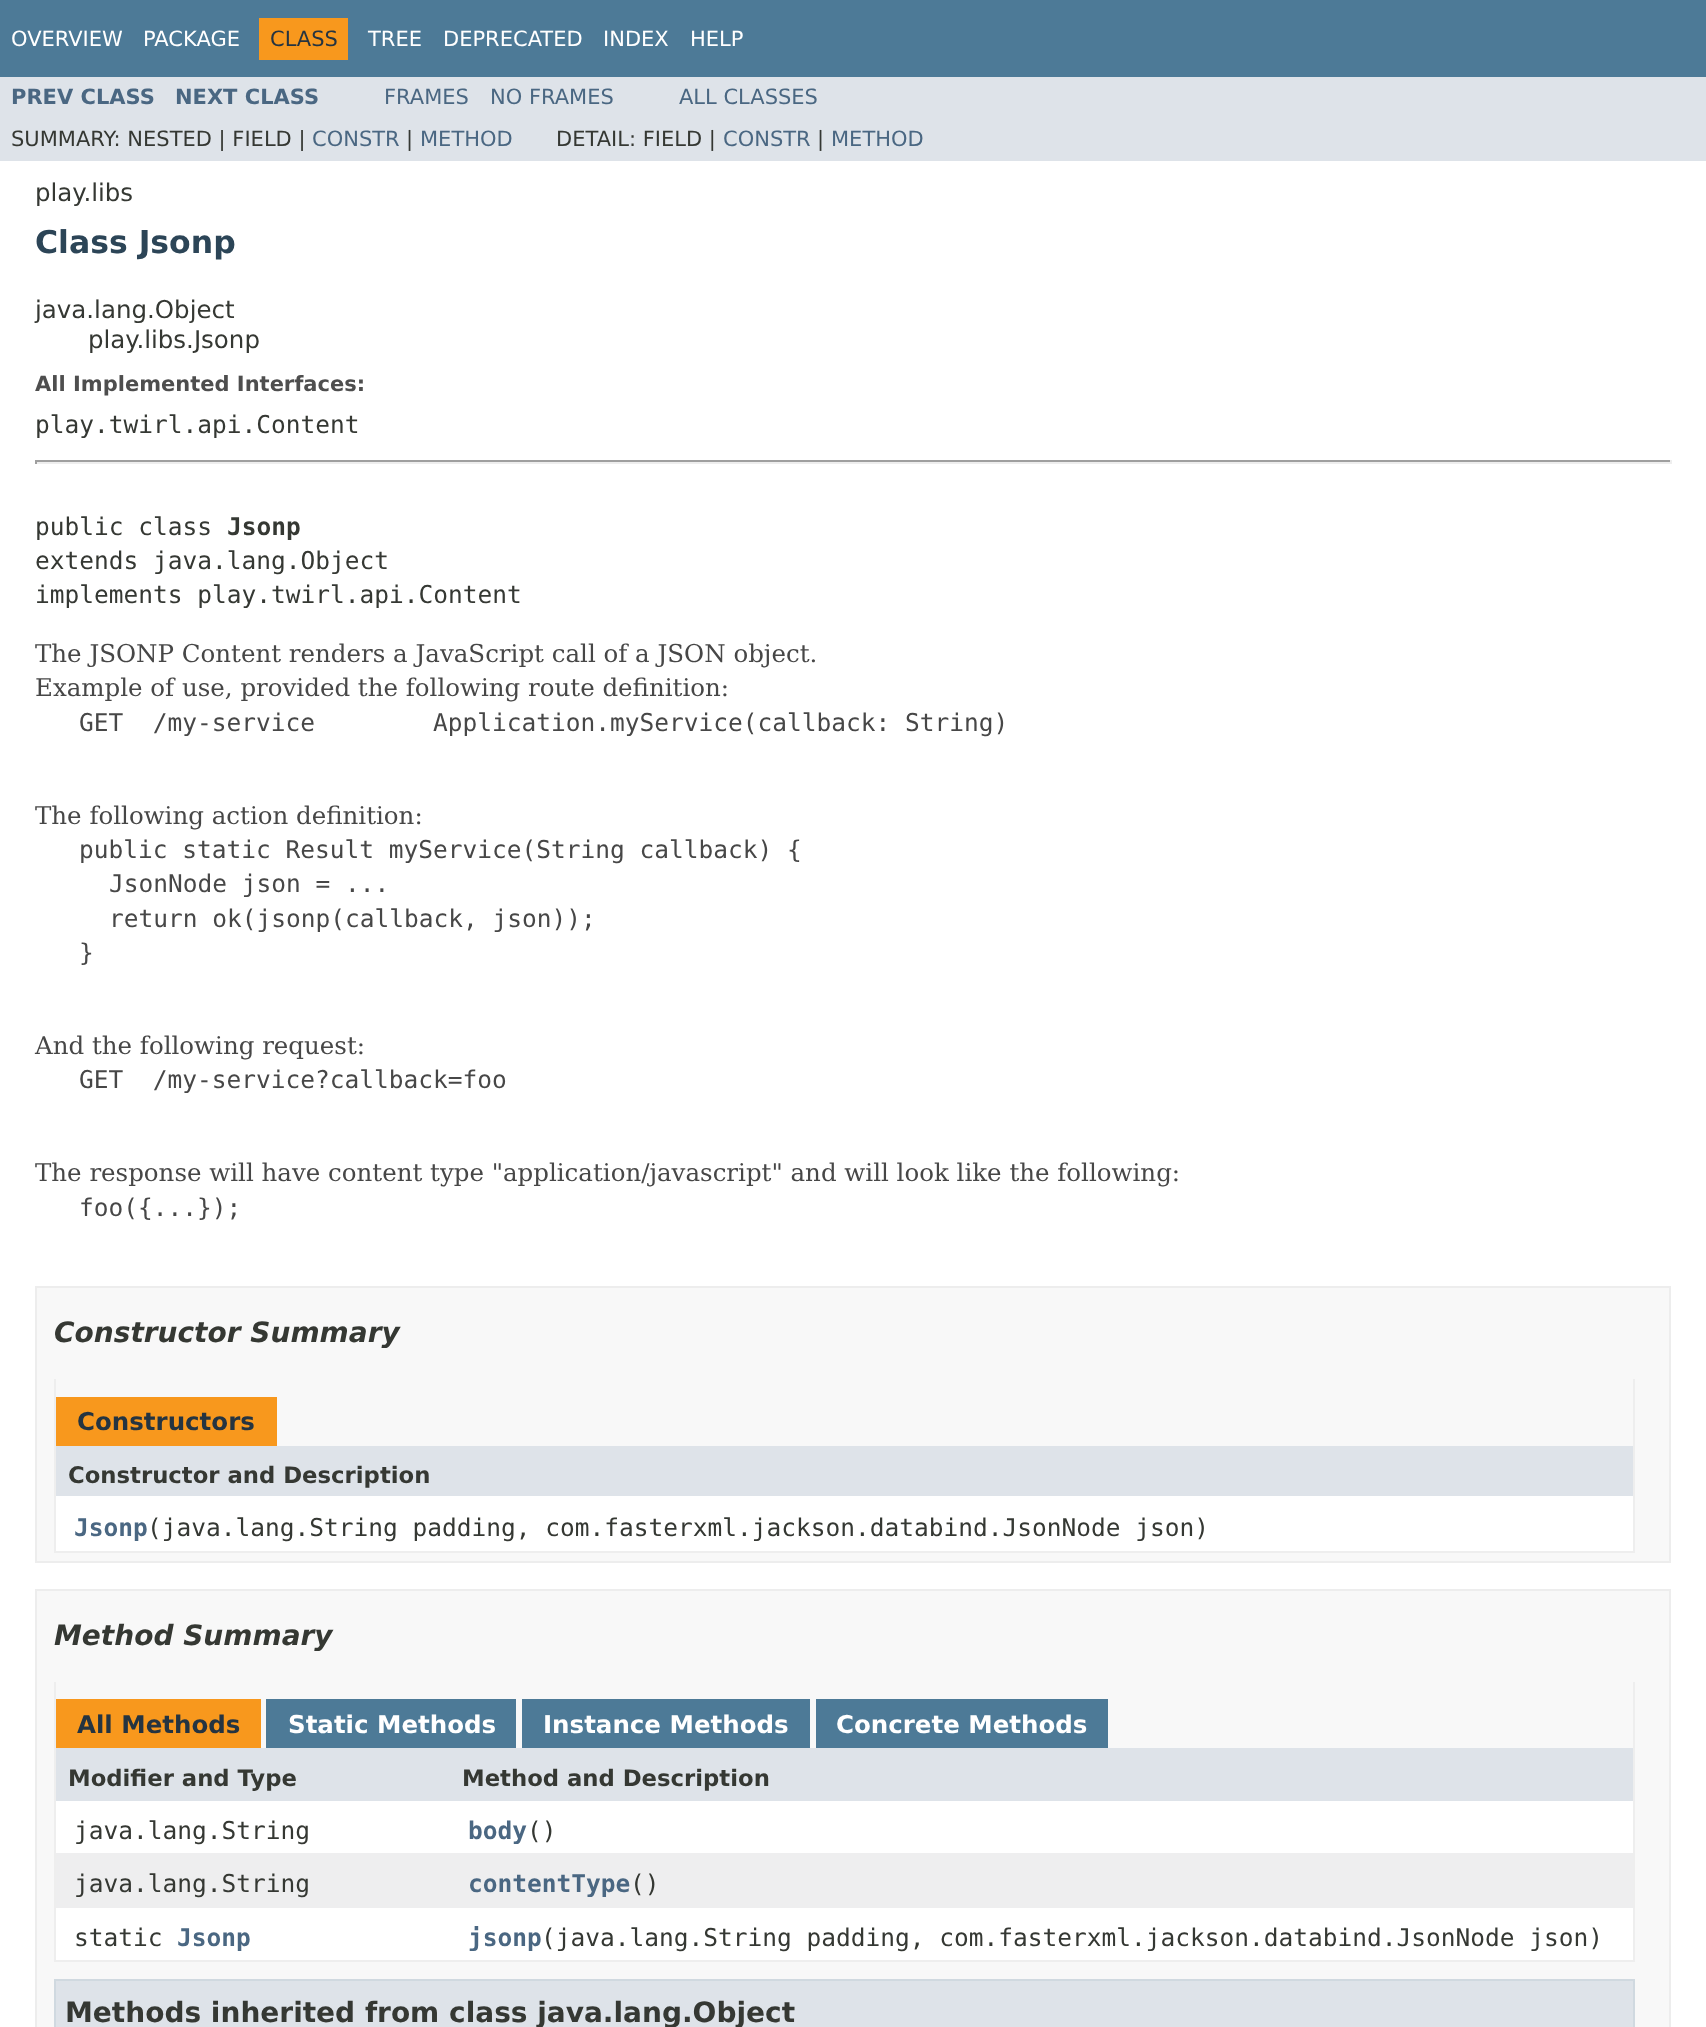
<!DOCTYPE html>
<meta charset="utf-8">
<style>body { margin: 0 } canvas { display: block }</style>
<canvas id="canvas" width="1706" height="2027"></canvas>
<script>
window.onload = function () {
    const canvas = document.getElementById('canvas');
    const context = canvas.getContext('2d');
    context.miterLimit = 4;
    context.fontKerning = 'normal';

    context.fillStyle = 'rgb(255, 255, 255)';
    context.fillRect(0, 0, 1706, 2027);
    context.fillStyle = 'rgb(77, 122, 151)';
    context.fillRect(0, 0, 1706, 77);
    context.fillStyle = 'rgb(248, 152, 29)';
    context.fillRect(259, 18, 89, 42);
    context.fillStyle = 'rgb(222, 227, 233)';
    context.fillRect(0, 77, 1706, 84);
    context.fillStyle = 'rgb(159, 159, 159)';
    context.fillRect(35, 460, 1636, 2);
    context.fillStyle = 'rgb(238, 238, 238)';
    context.fillRect(1670, 460, 2, 4);
    context.fillRect(35, 462, 1636, 2);
    context.fillStyle = 'rgb(159, 159, 159)';
    context.fillRect(35, 460, 2, 4);
    context.fillStyle = 'rgb(248, 248, 248)';
    context.beginPath();
    context.rect(36, 1287, 1634, 275);
    context.fill();
    context.strokeStyle = 'rgb(237, 237, 237)';
    context.lineWidth = 2;
    context.stroke();
    context.fillStyle = 'rgb(238, 238, 238)';
    context.fillRect(1633, 1379, 2, 173);
    context.fillRect(54, 1551, 1581, 2);
    context.fillRect(54, 1379, 2, 173);
    context.fillStyle = 'rgb(248, 152, 29)';
    context.fillRect(56, 1397, 221, 49);
    context.fillStyle = 'rgb(222, 227, 233)';
    context.fillRect(56, 1446, 1577, 50);
    context.fillStyle = 'rgb(255, 255, 255)';
    context.fillRect(56, 1496, 1577, 55);
    context.fillStyle = 'rgb(248, 248, 248)';
    context.beginPath();
    context.rect(36, 1590, 1634, 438);
    context.fill();
    context.stroke();
    context.fillStyle = 'rgb(238, 238, 238)';
    context.fillRect(1633, 1682, 2, 280);
    context.fillRect(54, 1960, 1581, 2);
    context.fillRect(54, 1682, 2, 280);
    context.fillStyle = 'rgb(248, 152, 29)';
    context.fillRect(56, 1699, 205, 49);
    context.fillStyle = 'rgb(77, 122, 151)';
    context.fillRect(266, 1699, 250, 49);
    context.fillRect(522, 1699, 288, 49);
    context.fillRect(816, 1699, 292, 49);
    context.fillStyle = 'rgb(222, 227, 233)';
    context.fillRect(56, 1748, 1577, 53);
    context.fillStyle = 'rgb(255, 255, 255)';
    context.fillRect(56, 1801, 1577, 52);
    context.fillStyle = 'rgb(238, 238, 239)';
    context.fillRect(56, 1853, 1577, 55);
    context.fillStyle = 'rgb(255, 255, 255)';
    context.fillRect(56, 1908, 1577, 52);
    context.fillStyle = 'rgb(222, 227, 233)';
    context.beginPath();
    context.rect(55, 1980, 1579, 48);
    context.fill();
    context.strokeStyle = 'rgb(208, 217, 224)';
    context.stroke();
    context.font = '21px DejaVu Sans';
    context.fillStyle = 'rgb(255, 255, 255)';
    context.fillText('OVERVIEW', 11, 46);
    context.fillText('PACKAGE', 143, 46);
    context.fillStyle = 'rgb(37, 52, 65)';
    context.fillText('CLASS', 270, 46);
    context.fillStyle = 'rgb(255, 255, 255)';
    context.fillText('TREE', 368, 46);
    context.fillText('DEPRECATED', 443, 46);
    context.fillText('INDEX', 603, 46);
    context.fillText('HELP', 690, 46);
    context.font = 'bold 21px DejaVu Sans';
    context.fillStyle = 'rgb(74, 103, 130)';
    context.fillText('PREV CLASS', 11, 104);
    context.fillText('NEXT CLASS', 175, 104);
    context.font = '21px DejaVu Sans';
    context.fillText('FRAMES', 384, 104);
    context.fillText('NO FRAMES', 490, 104);
    context.fillText('ALL CLASSES', 679, 104);
    context.fillStyle = 'rgb(53, 56, 51)';
    context.fillText('SUMMARY: NESTED | FIELD |', 11, 146);
    context.fillStyle = 'rgb(74, 103, 130)';
    context.fillText('CONSTR', 312, 146);
    context.fillStyle = 'rgb(53, 56, 51)';
    context.fillText('|', 406, 146);
    context.fillStyle = 'rgb(74, 103, 130)';
    context.fillText('METHOD', 420, 146);
    context.fillStyle = 'rgb(53, 56, 51)';
    context.fillText('DETAIL: FIELD |', 556, 146);
    context.fillStyle = 'rgb(74, 103, 130)';
    context.fillText('CONSTR', 723, 146);
    context.fillStyle = 'rgb(53, 56, 51)';
    context.fillText('|', 817, 146);
    context.fillStyle = 'rgb(74, 103, 130)';
    context.fillText('METHOD', 831, 146);
    context.font = '24.5px DejaVu Sans';
    context.fillStyle = 'rgb(53, 56, 51)';
    context.fillText('play.libs', 35, 201);
    context.font = 'bold 31.5px DejaVu Sans';
    context.fillStyle = 'rgb(44, 69, 87)';
    context.fillText('Class Jsonp', 35, 253);
    context.font = '24.5px DejaVu Sans';
    context.fillStyle = 'rgb(53, 56, 51)';
    context.fillText('java.lang.Object', 35, 318);
    context.fillText('play.libs.Jsonp', 88, 348);
    context.font = 'bold 21px DejaVu Sans';
    context.fillStyle = 'rgb(78, 78, 78)';
    context.fillText('All Implemented Interfaces:', 35, 391);
    context.font = '24.5px DejaVu Sans Mono';
    context.fillStyle = 'rgb(53, 56, 51)';
    context.fillText('play.twirl.api.Content', 35, 433);
    context.fillText('public class', 35, 535);
    context.font = 'bold 24.5px DejaVu Sans Mono';
    context.fillText('Jsonp', 227, 535);
    context.font = '24.5px DejaVu Sans Mono';
    context.fillText('extends java.lang.Object', 35, 569);
    context.fillText('implements play.twirl.api.Content', 35, 603);
    context.font = '24.5px DejaVu Serif';
    context.fillStyle = 'rgb(71, 71, 71)';
    context.fillText('The JSONP Content renders a JavaScript call of a JSON object.', 35, 662);
    context.fillText('Example of use, provided the following route definition:', 35, 696);
    context.font = '24.5px DejaVu Sans Mono';
    context.fillText('GET  /my-service        Application.myService(callback: String)', 79, 731);
    context.font = '24.5px DejaVu Serif';
    context.fillText('The following action definition:', 35, 824);
    context.font = '24.5px DejaVu Sans Mono';
    context.fillText('public static Result myService(String callback) {', 79, 858);
    context.fillText('JsonNode json = ...', 109, 892);
    context.fillText('return ok(jsonp(callback, json));', 109, 927);
    context.fillText('}', 79, 961);
    context.font = '24.5px DejaVu Serif';
    context.fillText('And the following request:', 35, 1054);
    context.font = '24.5px DejaVu Sans Mono';
    context.fillText('GET  /my-service?callback=foo', 79, 1088);
    context.font = '24.5px DejaVu Serif';
    context.fillText('The response will have content type "application/javascript" and will look like the following:', 35, 1181);
    context.font = '24.5px DejaVu Sans Mono';
    context.fillText('foo({...});', 79, 1216);
    context.font = 'italic bold 28px DejaVu Sans';
    context.fillStyle = 'rgb(53, 56, 51)';
    context.fillText('Constructor Summary', 54, 1342);
    context.font = 'bold 24.5px DejaVu Sans';
    context.fillStyle = 'rgb(37, 52, 65)';
    context.fillText('Constructors', 77, 1430);
    context.font = 'bold 22.75px DejaVu Sans';
    context.fillStyle = 'rgb(53, 56, 51)';
    context.fillText('Constructor and Description', 68, 1483);
    context.font = 'bold 24.5px DejaVu Sans Mono';
    context.fillStyle = 'rgb(74, 103, 130)';
    context.fillText('Jsonp', 74, 1536);
    context.font = '24.5px DejaVu Sans Mono';
    context.fillStyle = 'rgb(53, 56, 51)';
    context.fillText('(java.lang.String padding, com.fasterxml.jackson.databind.JsonNode json)', 147, 1536);
    context.font = 'italic bold 28px DejaVu Sans';
    context.fillText('Method Summary', 54, 1645);
    context.font = 'bold 24.5px DejaVu Sans';
    context.fillStyle = 'rgb(37, 52, 65)';
    context.fillText('All Methods', 77, 1733);
    context.fillStyle = 'rgb(255, 255, 255)';
    context.fillText('Static Methods', 288, 1733);
    context.fillText('Instance Methods', 543, 1733);
    context.fillText('Concrete Methods', 836, 1733);
    context.font = 'bold 22.75px DejaVu Sans';
    context.fillStyle = 'rgb(53, 56, 51)';
    context.fillText('Modifier and Type', 68, 1786);
    context.fillText('Method and Description', 462, 1786);
    context.font = '24.5px DejaVu Sans Mono';
    context.fillText('java.lang.String', 74, 1839);
    context.font = 'bold 24.5px DejaVu Sans Mono';
    context.fillStyle = 'rgb(74, 103, 130)';
    context.fillText('body', 468, 1839);
    context.font = '24.5px DejaVu Sans Mono';
    context.fillStyle = 'rgb(53, 56, 51)';
    context.fillText('()', 527, 1839);
    context.fillText('java.lang.String', 74, 1892);
    context.font = 'bold 24.5px DejaVu Sans Mono';
    context.fillStyle = 'rgb(74, 103, 130)';
    context.fillText('contentType', 468, 1892);
    context.font = '24.5px DejaVu Sans Mono';
    context.fillStyle = 'rgb(53, 56, 51)';
    context.fillText('()', 630, 1892);
    context.fillText('static', 74, 1946);
    context.font = 'bold 24.5px DejaVu Sans Mono';
    context.fillStyle = 'rgb(74, 103, 130)';
    context.fillText('Jsonp', 177, 1946);
    context.fillText('jsonp', 468, 1946);
    context.font = '24.5px DejaVu Sans Mono';
    context.fillStyle = 'rgb(53, 56, 51)';
    context.fillText('(java.lang.String padding, com.fasterxml.jackson.databind.JsonNode json)', 541, 1946);
    context.font = 'bold 28px DejaVu Sans';
    context.fillText('Methods inherited from class java.lang.Object', 65, 2022);
};
</script>
